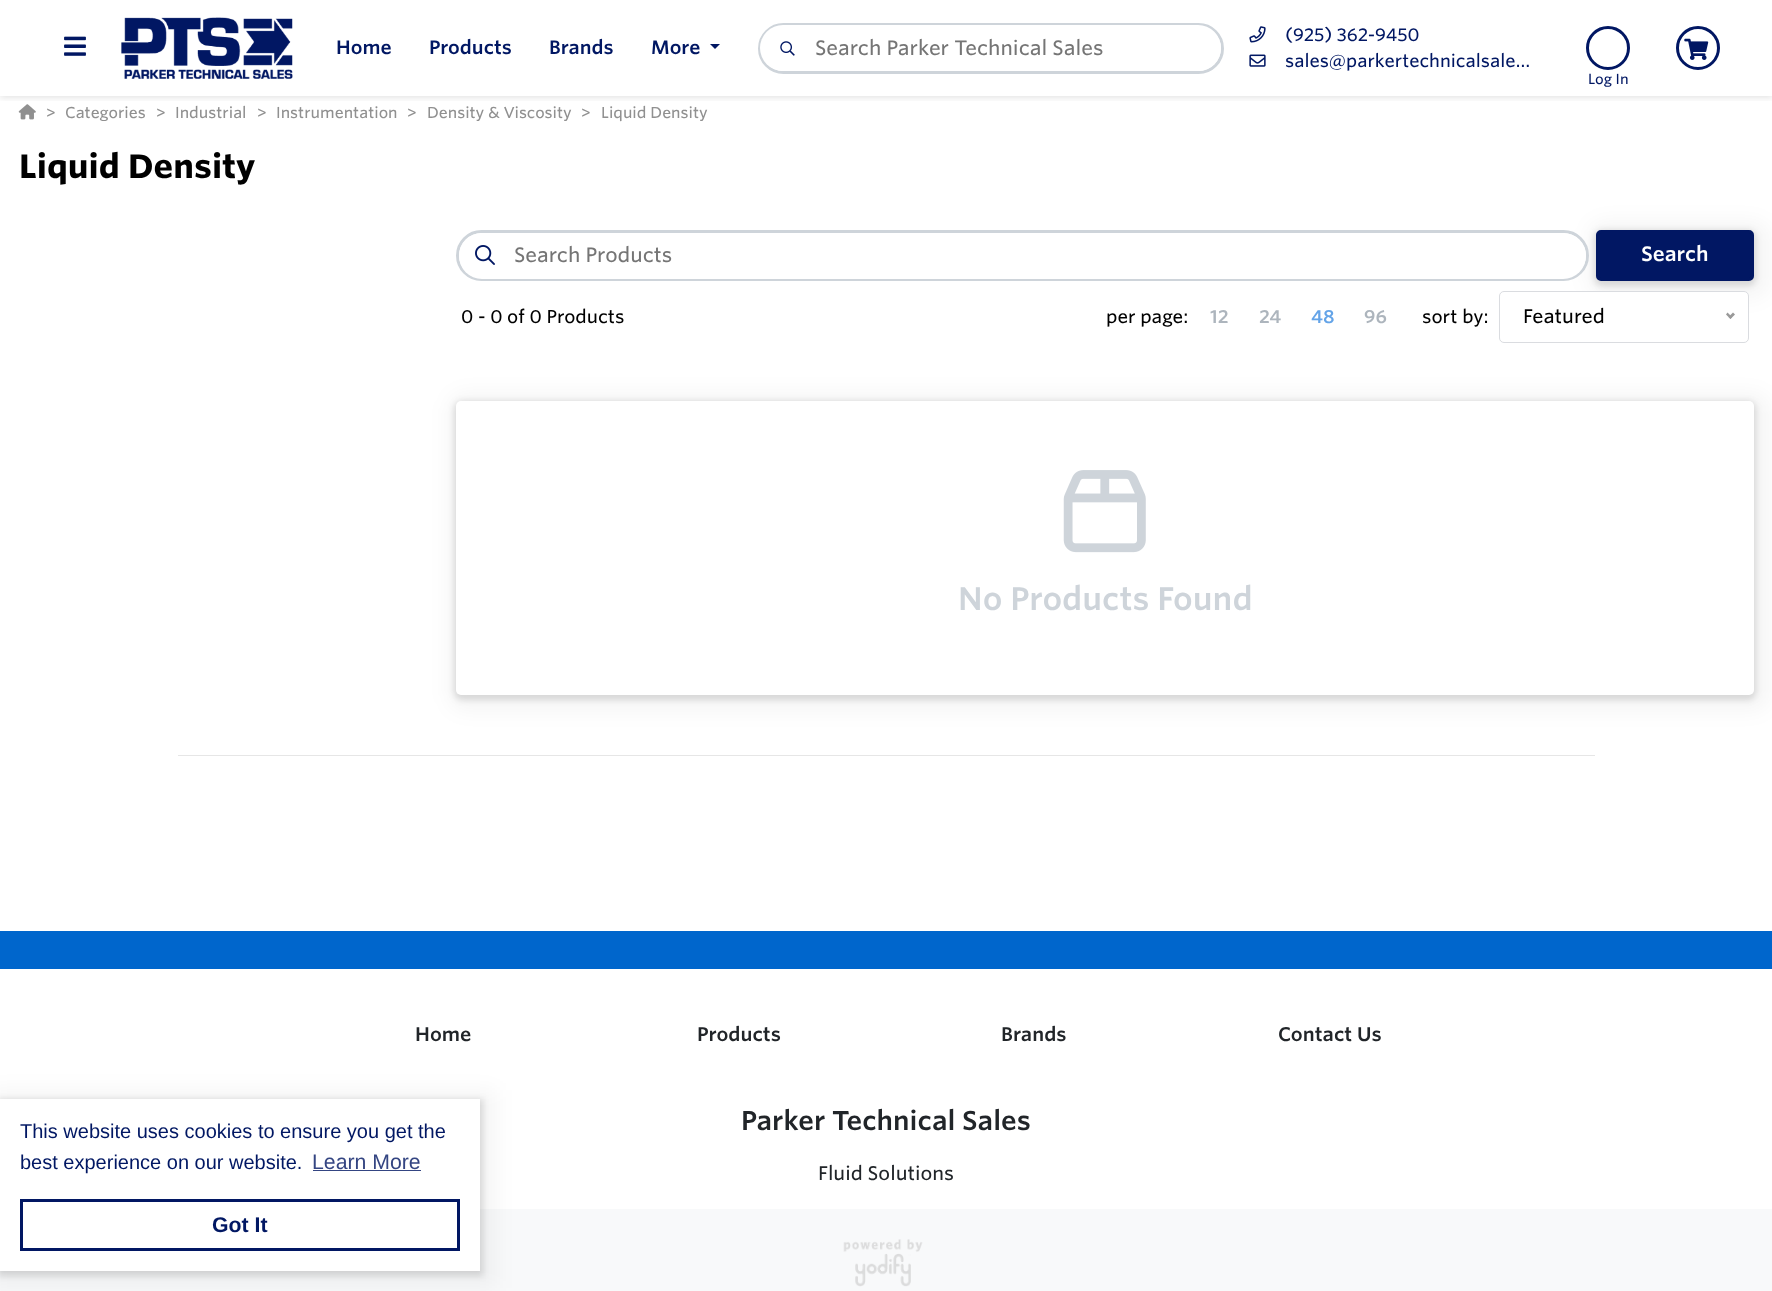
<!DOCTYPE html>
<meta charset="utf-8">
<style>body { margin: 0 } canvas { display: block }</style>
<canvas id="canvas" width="1772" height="1291"></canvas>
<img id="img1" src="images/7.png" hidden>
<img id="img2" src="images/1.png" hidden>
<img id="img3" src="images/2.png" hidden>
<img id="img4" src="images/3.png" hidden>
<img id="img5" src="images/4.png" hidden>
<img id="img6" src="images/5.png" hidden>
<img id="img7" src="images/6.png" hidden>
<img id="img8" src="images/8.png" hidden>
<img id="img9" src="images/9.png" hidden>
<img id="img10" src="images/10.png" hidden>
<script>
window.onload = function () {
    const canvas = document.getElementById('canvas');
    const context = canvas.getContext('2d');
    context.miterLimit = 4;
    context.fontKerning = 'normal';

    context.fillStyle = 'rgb(255, 255, 255)';
    context.fillRect(0, 0, 1772, 1291);
    context.drawImage(document.getElementById('img1'), 18, 104, 18, 16);
    context.save();
    context.beginPath();
    context.rect(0, 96, 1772, 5);
    context.clip();
    context.fillStyle = 'rgba(0, 0, 0, 0.1)';
    context.filter = 'blur(3px)';
    context.beginPath();
    context.rect(0, 1, 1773, 97);
    context.fill();
    context.filter = 'none';
    context.restore();
    context.drawImage(document.getElementById('img2'), 64, 36, 22, 20);
    context.drawImage(document.getElementById('img3'), 121, 17, 172, 62);
    context.fillStyle = 'rgb(1, 23, 99)';
    context.beginPath();
    context.moveTo(710, 44);
    context.lineTo(720, 44);
    context.lineTo(715, 49);
    context.closePath();
    context.fill();
    context.beginPath();
    context.roundRect(759.5, 24.5, 463, 48, 24);
    context.strokeStyle = 'rgb(206, 212, 218)';
    context.lineWidth = 3;
    context.stroke();
    context.fillStyle = 'rgb(255, 255, 255)';
    context.beginPath();
    context.roundRect(760, 25, 461, 46, 23);
    context.fill();
    context.drawImage(document.getElementById('img4'), 780, 41, 15, 15);
    context.drawImage(document.getElementById('img5'), 1249, 26, 17, 17);
    context.drawImage(document.getElementById('img6'), 1249, 54, 17, 13);
    context.beginPath();
    context.arc(1698, 48, 20.5, 0, 2 * Math.PI);
    context.strokeStyle = 'rgb(1, 23, 99)';
    context.stroke();
    context.drawImage(document.getElementById('img7'), 1684, 38, 25, 22);
    context.beginPath();
    context.arc(1608, 48, 20.5, 0, 2 * Math.PI);
    context.stroke();
    context.fillStyle = 'rgba(0, 0, 0, 0.04)';
    context.filter = 'blur(10px)';
    context.beginPath();
    context.roundRect(1588, 221, 182, 77, 18);
    context.fill();
    context.filter = 'none';
    context.fillStyle = 'rgba(0, 0, 0, 0.12)';
    context.filter = 'blur(3px)';
    context.beginPath();
    context.roundRect(1594, 230, 162, 56, 8);
    context.fill();
    context.filter = 'none';
    context.fillStyle = 'rgb(255, 255, 255)';
    context.beginPath();
    context.roundRect(457.5, 231.5, 1130, 48, 24);
    context.fill();
    context.strokeStyle = 'rgb(206, 212, 218)';
    context.stroke();
    context.beginPath();
    context.roundRect(459, 233, 1127, 46, 23);
    context.fill();
    context.drawImage(document.getElementById('img8'), 475, 245, 20, 20);
    context.fillStyle = 'rgb(1, 23, 99)';
    context.beginPath();
    context.roundRect(1597.5, 231.5, 155, 48, 3.5);
    context.fill();
    context.strokeStyle = 'rgb(1, 23, 99)';
    context.stroke();
    context.fillStyle = 'rgb(255, 255, 255)';
    context.beginPath();
    context.roundRect(1499.5, 291.5, 249, 51, 4.5);
    context.fill();
    context.strokeStyle = 'rgb(218, 220, 224)';
    context.lineWidth = 1;
    context.stroke();
    context.fillStyle = 'rgb(153, 153, 153)';
    context.beginPath();
    context.moveTo(1733, 312.5);
    context.lineTo(1735, 314.5);
    context.lineTo(1730.5, 319);
    context.lineTo(1728.5, 317);
    context.closePath();
    context.fill();
    context.beginPath();
    context.moveTo(1727.5, 312.5);
    context.lineTo(1732, 317);
    context.lineTo(1730.5, 319);
    context.lineTo(1726, 314.5);
    context.closePath();
    context.fill();
    context.fillStyle = 'rgba(0, 0, 0, 0.04)';
    context.filter = 'blur(10px)';
    context.beginPath();
    context.roundRect(448, 393, 1322, 318, 18);
    context.fill();
    context.filter = 'none';
    context.fillStyle = 'rgba(0, 0, 0, 0.12)';
    context.filter = 'blur(3px)';
    context.beginPath();
    context.roundRect(454, 401, 1302, 299, 8);
    context.fill();
    context.filter = 'none';
    context.fillStyle = 'rgb(255, 255, 255)';
    context.beginPath();
    context.roundRect(456, 401, 1298, 294, 5);
    context.fill();
    context.drawImage(document.getElementById('img9'), 1063, 470, 83, 83);
    context.fillStyle = 'rgb(230, 230, 230)';
    context.fillRect(178, 755, 1417, 1);
    context.fillStyle = 'rgb(0, 102, 204)';
    context.fillRect(0, 931, 1772, 38);
    context.fillStyle = 'rgb(248, 249, 250)';
    context.fillRect(0, 1209, 1772, 82);
    context.fillStyle = 'rgba(0, 0, 0, 0.04)';
    context.filter = 'blur(10px)';
    context.beginPath();
    context.rect(-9, 1090, 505, 198);
    context.fill();
    context.filter = 'none';
    context.fillStyle = 'rgba(0, 0, 0, 0.12)';
    context.filter = 'blur(3px)';
    context.beginPath();
    context.rect(-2, 1099, 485, 177);
    context.fill();
    context.filter = 'none';
    context.fillStyle = 'rgb(255, 255, 255)';
    context.fillRect(0, 1099, 480, 172);
    context.fillStyle = 'rgb(52, 69, 130)';
    context.fillRect(313, 1170, 108, 1);
    context.strokeStyle = 'rgb(1, 23, 99)';
    context.lineWidth = 3;
    context.strokeRect(21.5, 1200.5, 437, 49);
    context.drawImage(document.getElementById('img10'), 843, 1239, 80, 48);
    context.font = '18.75px "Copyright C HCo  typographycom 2"';
    context.fillStyle = 'rgb(1, 23, 99)';
    context.fillText('Home', 336, 54);
    context.fillText('Products', 429, 54);
    context.fillText('Brands', 549, 54);
    context.fillText('More', 651, 54);
    context.font = '300 20px "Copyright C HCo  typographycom"';
    context.fillStyle = 'rgb(117, 117, 117)';
    context.fillText('Search Parker Technical Sales', 815, 55);
    context.font = '300 17.5px "Copyright C HCo  typographycom"';
    context.fillStyle = 'rgb(1, 23, 99)';
    context.fillText('(925) 362-9450', 1285, 41);
    context.fillText('sales@parkertechnicalsale…', 1285, 67);
    context.font = '300 14px "Copyright C HCo  typographycom"';
    context.fillText('Log In', 1588, 84);
    context.font = '300 15.25px "Copyright C HCo  typographycom"';
    context.fillStyle = 'rgb(144, 144, 144)';
    context.fillText('>', 46, 118);
    context.fillText('Categories', 65, 118);
    context.fillText('>', 156, 118);
    context.fillText('Industrial', 175, 118);
    context.fillText('>', 257, 118);
    context.fillText('Instrumentation', 276, 118);
    context.fillText('>', 407, 118);
    context.fillText('Density & Viscosity', 427, 118);
    context.fillText('>', 581, 118);
    context.fillText('Liquid Density', 601, 118);
    context.font = '32.5px "Copyright C HCo  typographycom"';
    context.fillStyle = 'rgb(0, 0, 0)';
    context.fillText('Liquid Density', 19, 178);
    context.font = '300 20px "Copyright C HCo  typographycom"';
    context.fillStyle = 'rgb(117, 117, 117)';
    context.fillText('Search Products', 514, 262);
    context.font = '20px "Copyright C HCo  typographycom 2"';
    context.fillStyle = 'rgb(255, 255, 255)';
    context.fillText('Search', 1641, 261);
    context.font = '300 18px "Copyright C HCo  typographycom"';
    context.fillStyle = 'rgb(0, 0, 0)';
    context.fillText('0 - 0 of 0 Products', 461, 323);
    context.fillText('per page:', 1106, 323);
    context.font = '18px "Copyright C HCo  typographycom 2"';
    context.fillStyle = 'rgb(173, 181, 189)';
    context.fillText('12', 1210, 323);
    context.fillText('24', 1259, 323);
    context.fillStyle = 'rgb(100, 164, 232)';
    context.fillText('48', 1311, 323);
    context.fillStyle = 'rgb(173, 181, 189)';
    context.fillText('96', 1364, 323);
    context.font = '300 18px "Copyright C HCo  typographycom"';
    context.fillStyle = 'rgb(0, 0, 0)';
    context.fillText('sort by:', 1422, 323);
    context.font = '300 19px "Copyright C HCo  typographycom"';
    context.fillText('Featured', 1523, 323);
    context.font = '31.5px "Copyright C HCo  typographycom 2"';
    context.fillStyle = 'rgb(206, 212, 218)';
    context.fillText('No Products Found', 958, 610);
    context.font = '20px Liberation Sans';
    context.fillStyle = 'rgb(1, 23, 99)';
    context.fillText('This website uses cookies to ensure you get the', 20, 1138);
    context.fillText('best experience on our website.', 20, 1169);
    context.font = '21.25px Liberation Sans';
    context.fillStyle = 'rgb(52, 69, 130)';
    context.fillText('Learn More', 312, 1169);
    context.font = 'bold 21.25px Liberation Sans';
    context.fillStyle = 'rgb(1, 23, 99)';
    context.fillText('Got It', 212, 1232);
    context.font = '19px "Copyright C HCo  typographycom 2"';
    context.fillStyle = 'rgb(33, 37, 41)';
    context.fillText('Home', 415, 1041);
    context.fillText('Products', 697, 1041);
    context.fillText('Brands', 1001, 1041);
    context.fillText('Contact Us', 1278, 1041);
    context.font = '26.25px "Copyright C HCo  typographycom 2"';
    context.fillText('Parker Technical Sales', 741, 1130);
    context.font = '300 19px "Copyright C HCo  typographycom"';
    context.fillText('Fluid Solutions', 818, 1180);
};
</script>
